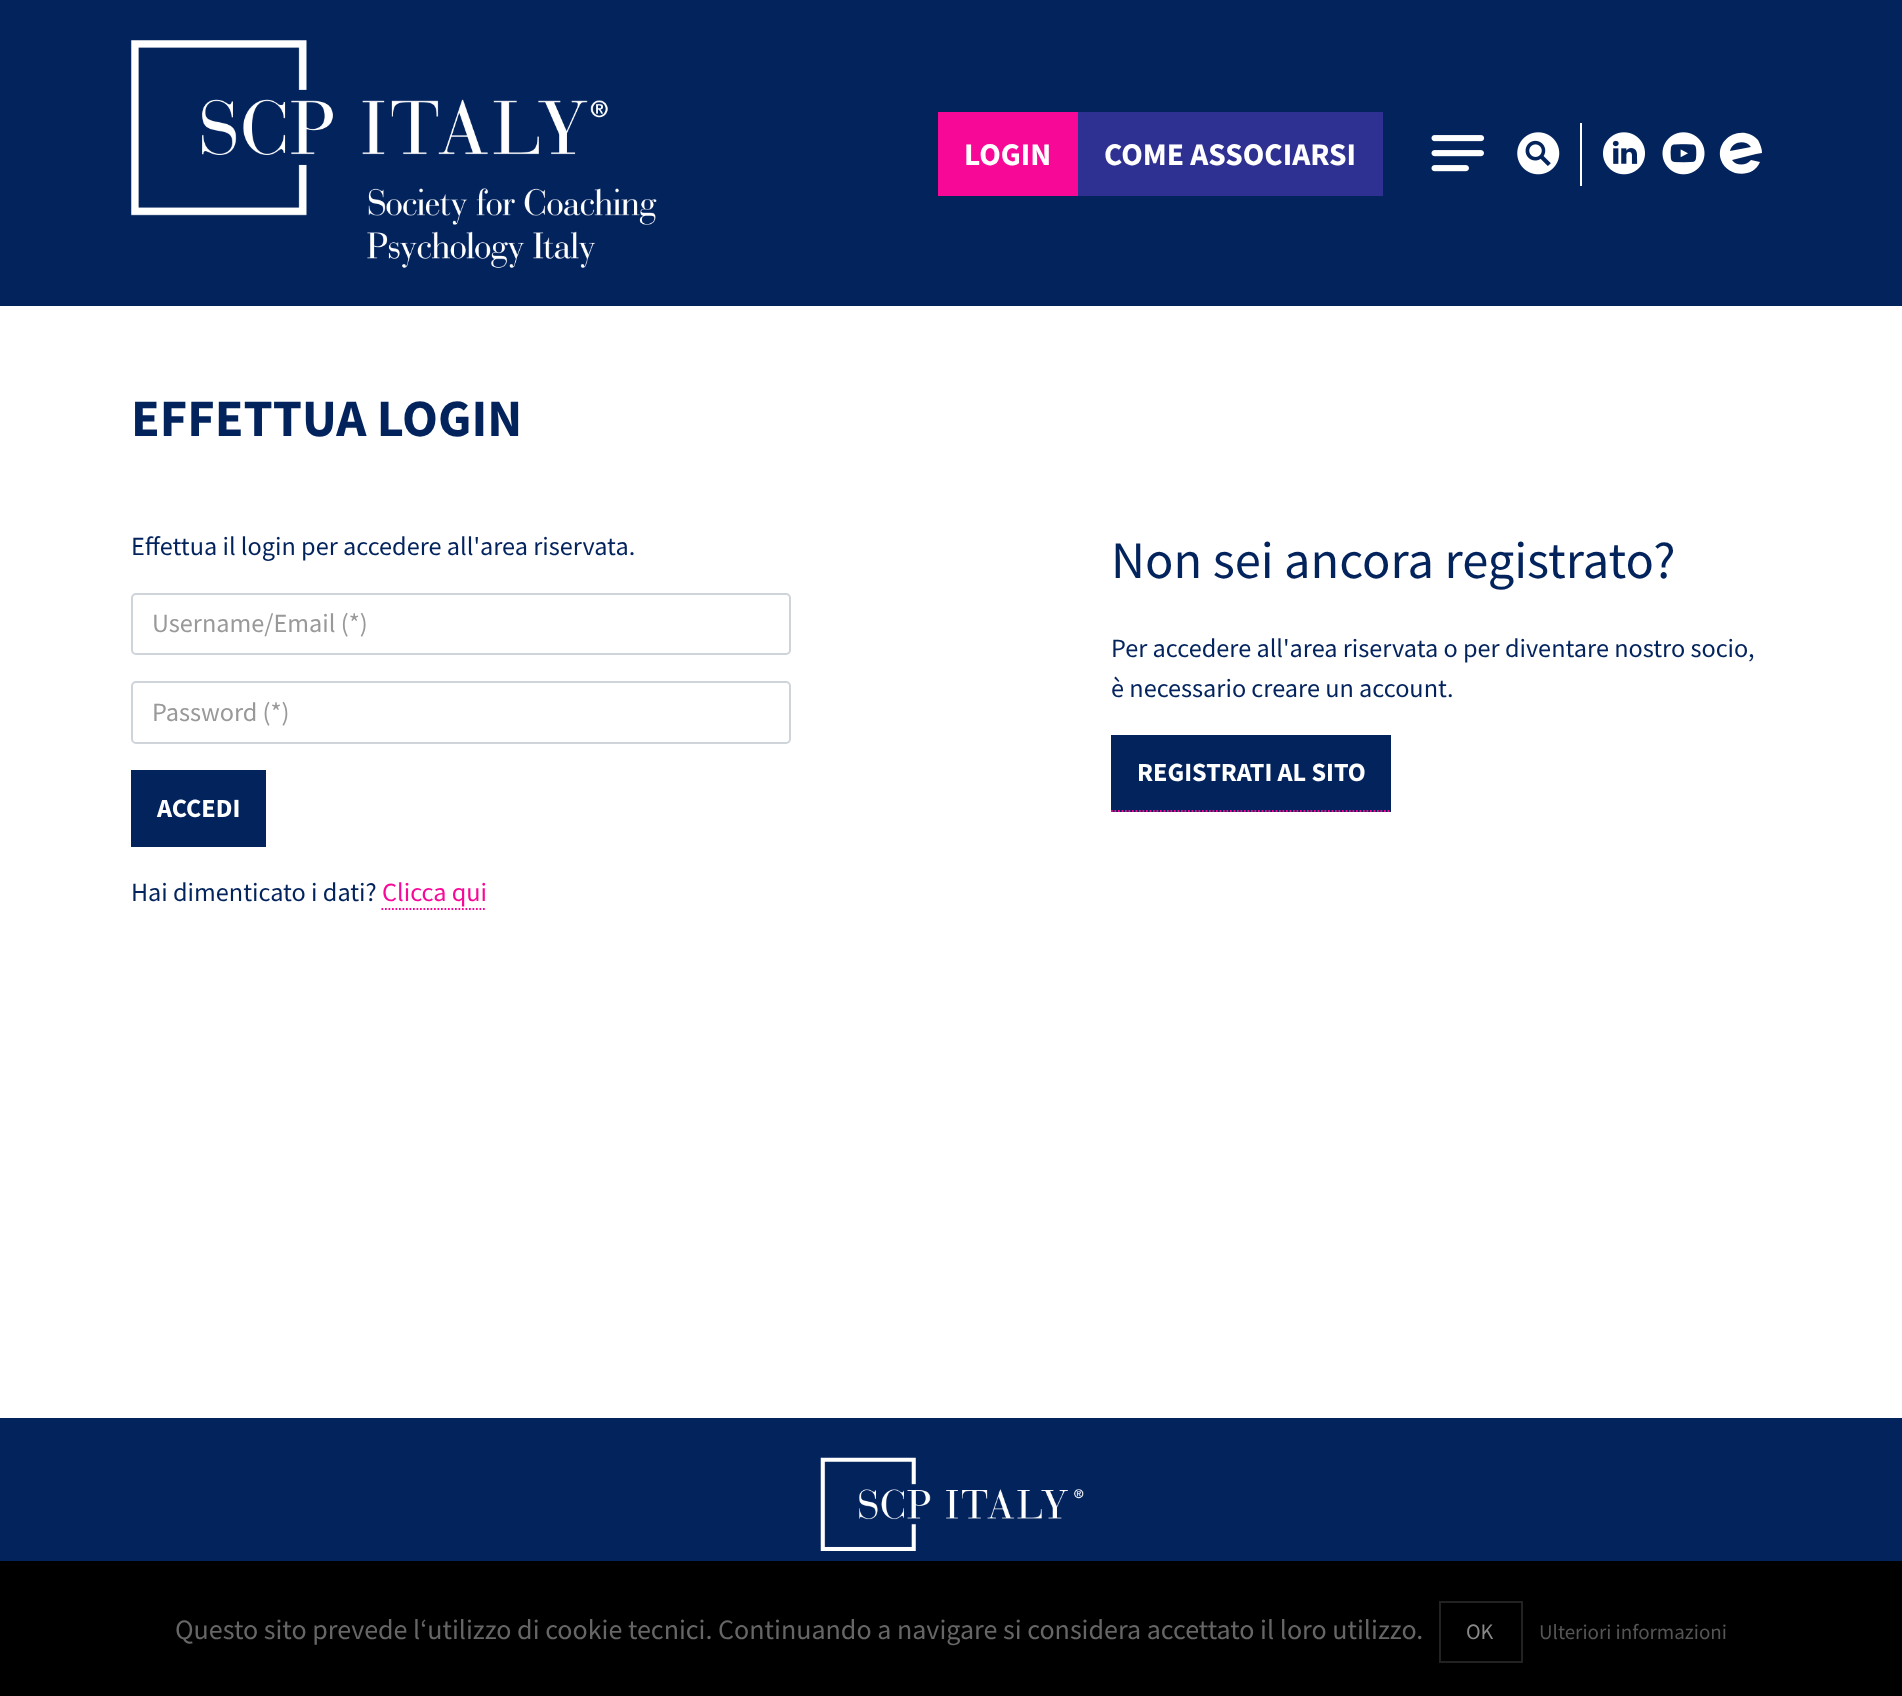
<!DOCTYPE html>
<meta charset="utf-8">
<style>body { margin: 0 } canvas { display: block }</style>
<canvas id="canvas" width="1902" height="1696"></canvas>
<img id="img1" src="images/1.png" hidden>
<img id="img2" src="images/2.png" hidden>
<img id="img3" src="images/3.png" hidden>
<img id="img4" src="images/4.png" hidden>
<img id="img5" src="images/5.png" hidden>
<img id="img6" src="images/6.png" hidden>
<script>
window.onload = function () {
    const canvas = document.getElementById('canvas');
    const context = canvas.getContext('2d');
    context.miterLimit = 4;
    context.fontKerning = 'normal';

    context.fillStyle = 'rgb(255, 255, 255)';
    context.fillRect(0, 0, 1902, 1696);
    context.fillStyle = 'rgb(3, 35, 93)';
    context.fillRect(0, 0, 1902, 306);
    context.drawImage(document.getElementById('img1'), 131, 40, 526, 228);
    context.fillStyle = 'rgb(248, 8, 151)';
    context.fillRect(938, 112, 140, 84);
    context.fillStyle = 'rgb(46, 49, 146)';
    context.fillRect(1078, 112, 305, 84);
    context.drawImage(document.getElementById('img2'), 1431, 135, 54, 37);
    context.drawImage(document.getElementById('img3'), 1517, 132, 43, 43);
    context.fillStyle = 'rgb(255, 255, 255)';
    context.fillRect(1580, 123, 2, 63);
    context.drawImage(document.getElementById('img4'), 1603, 132, 42, 43);
    context.drawImage(document.getElementById('img5'), 1662, 132, 43, 43);
    context.beginPath();
    context.moveTo(1756, 154);
    context.lineTo(1762, 153);
    context.bezierCurveTo(1762, 148, 1760, 144, 1758, 140);
    context.bezierCurveTo(1743, 123, 1714, 138, 1721, 160);
    context.bezierCurveTo(1727, 177, 1753, 179, 1760, 162);
    context.lineTo(1751, 160);
    context.bezierCurveTo(1746, 166, 1736, 166, 1732, 160);
    context.closePath();
    context.moveTo(1730, 151);
    context.bezierCurveTo(1732, 142, 1745, 139, 1751, 147);
    context.closePath();
    context.fill();
    context.beginPath();
    context.roundRect(132, 594, 658, 60, 4);
    context.strokeStyle = 'rgb(206, 212, 218)';
    context.lineWidth = 2;
    context.stroke();
    context.beginPath();
    context.roundRect(132, 682, 658, 61, 4);
    context.stroke();
    context.fillStyle = 'rgb(3, 35, 93)';
    context.fillRect(131, 770, 135, 77);
    context.beginPath();
    context.moveTo(381.5, 909);
    context.lineTo(486.5, 909);
    context.strokeStyle = 'rgb(248, 8, 151)';
    context.lineWidth = 1.8;
    context.setLineDash([1.75, 1.75]);
    context.stroke();
    context.fillRect(1111, 735, 280, 77);
    context.beginPath();
    context.moveTo(1111, 811);
    context.lineTo(1391, 811);
    context.stroke();
    context.fillRect(0, 1418, 1902, 143);
    context.drawImage(document.getElementById('img6'), 820, 1457, 264, 94);
    context.fillStyle = 'rgb(0, 0, 0)';
    context.fillRect(0, 1561, 1902, 135);
    context.strokeStyle = 'rgb(34, 34, 34)';
    context.lineWidth = 2;
    context.setLineDash([]);
    context.strokeRect(1440, 1602, 82, 60);
    context.font = 'bold 31.5px Source Sans Pro';
    context.fillStyle = 'rgb(255, 255, 255)';
    context.fillText('LOGIN', 964, 165);
    context.fillText('COME ASSOCIARSI', 1104, 165);
    context.font = 'bold 52.5px Source Sans Pro';
    context.fillStyle = 'rgb(3, 35, 93)';
    context.fillText('EFFETTUA LOGIN', 131, 436);
    context.font = '26.25px Source Sans Pro';
    context.fillText('Effettua il login per accedere all\'area riservata.', 131, 555);
    context.fillStyle = 'rgb(153, 153, 153)';
    context.fillText('Username/Email (*)', 152, 632);
    context.fillText('Password (*)', 152, 721);
    context.font = 'bold 26.25px Source Sans Pro';
    context.fillStyle = 'rgb(255, 255, 255)';
    context.fillText('ACCEDI', 157, 817);
    context.font = '26.25px Source Sans Pro';
    context.fillStyle = 'rgb(3, 35, 93)';
    context.fillText('Hai dimenticato i dati?', 131, 901);
    context.fillStyle = 'rgb(248, 8, 151)';
    context.fillText('Clicca qui', 382, 901);
    context.font = '52.5px Source Sans Pro';
    context.fillStyle = 'rgb(3, 35, 93)';
    context.fillText('Non sei ancora registrato?', 1111, 578);
    context.font = '26.25px Source Sans Pro';
    context.fillText('Per accedere all\'area riservata o per diventare nostro socio,', 1111, 657);
    context.fillText('è necessario creare un account.', 1111, 697);
    context.font = 'bold 26.25px Source Sans Pro';
    context.fillStyle = 'rgb(255, 255, 255)';
    context.fillText('REGISTRATI AL SITO', 1137, 781);
    context.font = '28px Source Sans Pro';
    context.fillStyle = 'rgb(102, 102, 102)';
    context.fillText('Questo sito prevede l‘utilizzo di cookie tecnici. Continuando a navigare si considera accettato il loro utilizzo.', 175, 1639);
    context.font = '22px Source Sans Pro';
    context.fillStyle = 'rgb(136, 136, 136)';
    context.fillText('OK', 1466, 1639);
    context.font = '21px Source Sans Pro';
    context.fillStyle = 'rgb(85, 85, 85)';
    context.fillText('Ulteriori informazioni', 1539, 1639);
};
</script>
